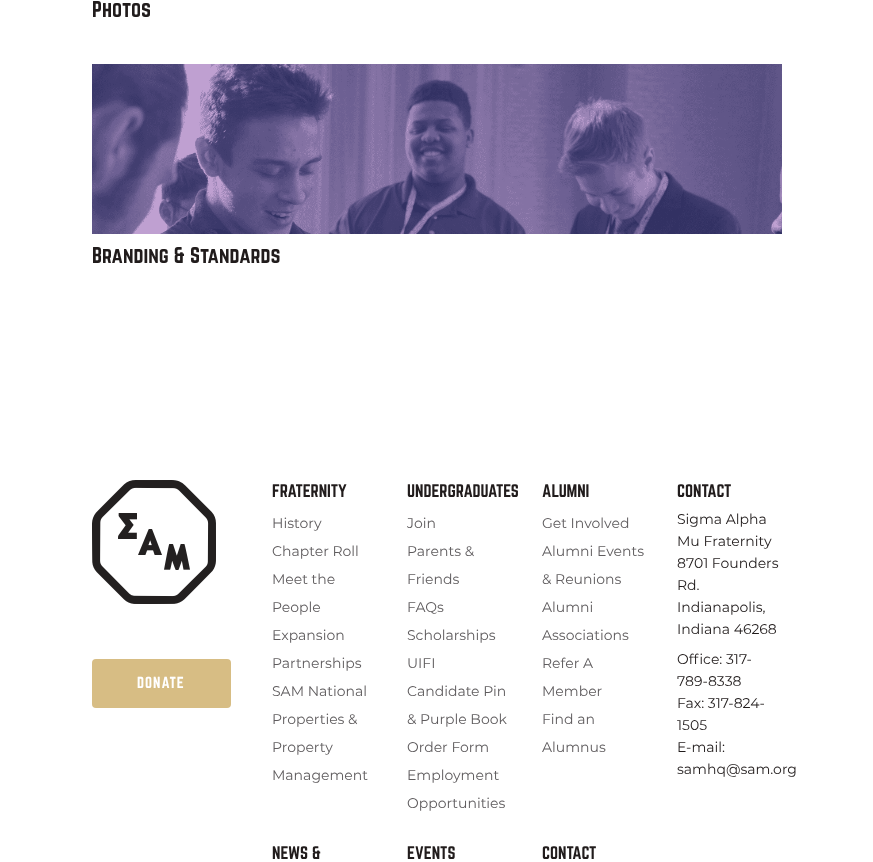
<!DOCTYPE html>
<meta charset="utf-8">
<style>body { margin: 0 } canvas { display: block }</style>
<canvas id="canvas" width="873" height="862"></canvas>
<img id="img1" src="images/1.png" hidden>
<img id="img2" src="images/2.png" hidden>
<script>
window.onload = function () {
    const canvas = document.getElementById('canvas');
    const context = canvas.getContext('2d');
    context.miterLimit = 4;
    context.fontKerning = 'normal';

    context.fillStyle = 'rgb(255, 255, 255)';
    context.fillRect(0, 0, 873, 862);
    context.drawImage(document.getElementById('img1'), 92, 64, 690, 170);
    context.drawImage(document.getElementById('img2'), 92, 480, 124, 124);
    context.fillStyle = 'rgb(215, 189, 132)';
    context.beginPath();
    context.roundRect(92, 659, 139, 49, 4);
    context.fill();
    context.font = '20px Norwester';
    context.fillStyle = 'rgb(33, 28, 28)';
    context.fillText('Photos', 92, 17);
    context.fillText('Branding & Standards', 92, 263);
    context.letterSpacing = '1px';
    context.font = '14px Norwester';
    context.fillStyle = 'rgb(255, 255, 255)';
    context.fillText('DONATE', 137, 688);
    context.letterSpacing = '0px';
    context.font = '16px Norwester';
    context.fillStyle = 'rgb(33, 28, 28)';
    context.fillText('FRATERNITY', 272, 497);
    context.font = '14px Montserrat';
    context.fillStyle = 'rgb(95, 92, 94)';
    context.fillText('History', 272, 528);
    context.fillText('Chapter Roll', 272, 556);
    context.fillText('Meet the', 272, 584);
    context.fillText('People', 272, 612);
    context.fillText('Expansion', 272, 640);
    context.fillText('Partnerships', 272, 668);
    context.fillText('SAM National', 272, 696);
    context.fillText('Properties &', 272, 724);
    context.fillText('Property', 272, 752);
    context.fillText('Management', 272, 780);
    context.font = '16px Norwester';
    context.fillStyle = 'rgb(33, 28, 28)';
    context.fillText('UNDERGRADUATES', 407, 497);
    context.font = '14px Montserrat';
    context.fillStyle = 'rgb(95, 92, 94)';
    context.fillText('Join', 407, 528);
    context.fillText('Parents &', 407, 556);
    context.fillText('Friends', 407, 584);
    context.fillText('FAQs', 407, 612);
    context.fillText('Scholarships', 407, 640);
    context.fillText('UIFI', 407, 668);
    context.fillText('Candidate Pin', 407, 696);
    context.fillText('& Purple Book', 407, 724);
    context.fillText('Order Form', 407, 752);
    context.fillText('Employment', 407, 780);
    context.fillText('Opportunities', 407, 808);
    context.font = '16px Norwester';
    context.fillStyle = 'rgb(33, 28, 28)';
    context.fillText('ALUMNI', 542, 497);
    context.font = '14px Montserrat';
    context.fillStyle = 'rgb(95, 92, 94)';
    context.fillText('Get Involved', 542, 528);
    context.fillText('Alumni Events', 542, 556);
    context.fillText('& Reunions', 542, 584);
    context.fillText('Alumni', 542, 612);
    context.fillText('Associations', 542, 640);
    context.fillText('Refer A', 542, 668);
    context.fillText('Member', 542, 696);
    context.fillText('Find an', 542, 724);
    context.fillText('Alumnus', 542, 752);
    context.font = '16px Norwester';
    context.fillStyle = 'rgb(33, 28, 28)';
    context.fillText('CONTACT', 677, 497);
    context.font = '14px Montserrat';
    context.fillText('Sigma Alpha', 677, 524);
    context.fillText('Mu Fraternity', 677, 546);
    context.fillText('8701 Founders', 677, 568);
    context.fillText('Rd.', 677, 590);
    context.fillText('Indianapolis,', 677, 612);
    context.fillText('Indiana 46268', 677, 634);
    context.fillText('Office: 317-', 677, 664);
    context.fillText('789-8338', 677, 686);
    context.fillText('Fax: 317-824-', 677, 708);
    context.fillText('1505', 677, 730);
    context.fillText('E-mail:', 677, 752);
    context.fillText('samhq@sam.org', 677, 774);
    context.font = '16px Norwester';
    context.fillText('NEWS &', 272, 859);
    context.fillText('EVENTS', 407, 859);
    context.fillText('CONTACT', 542, 859);
};
</script>
